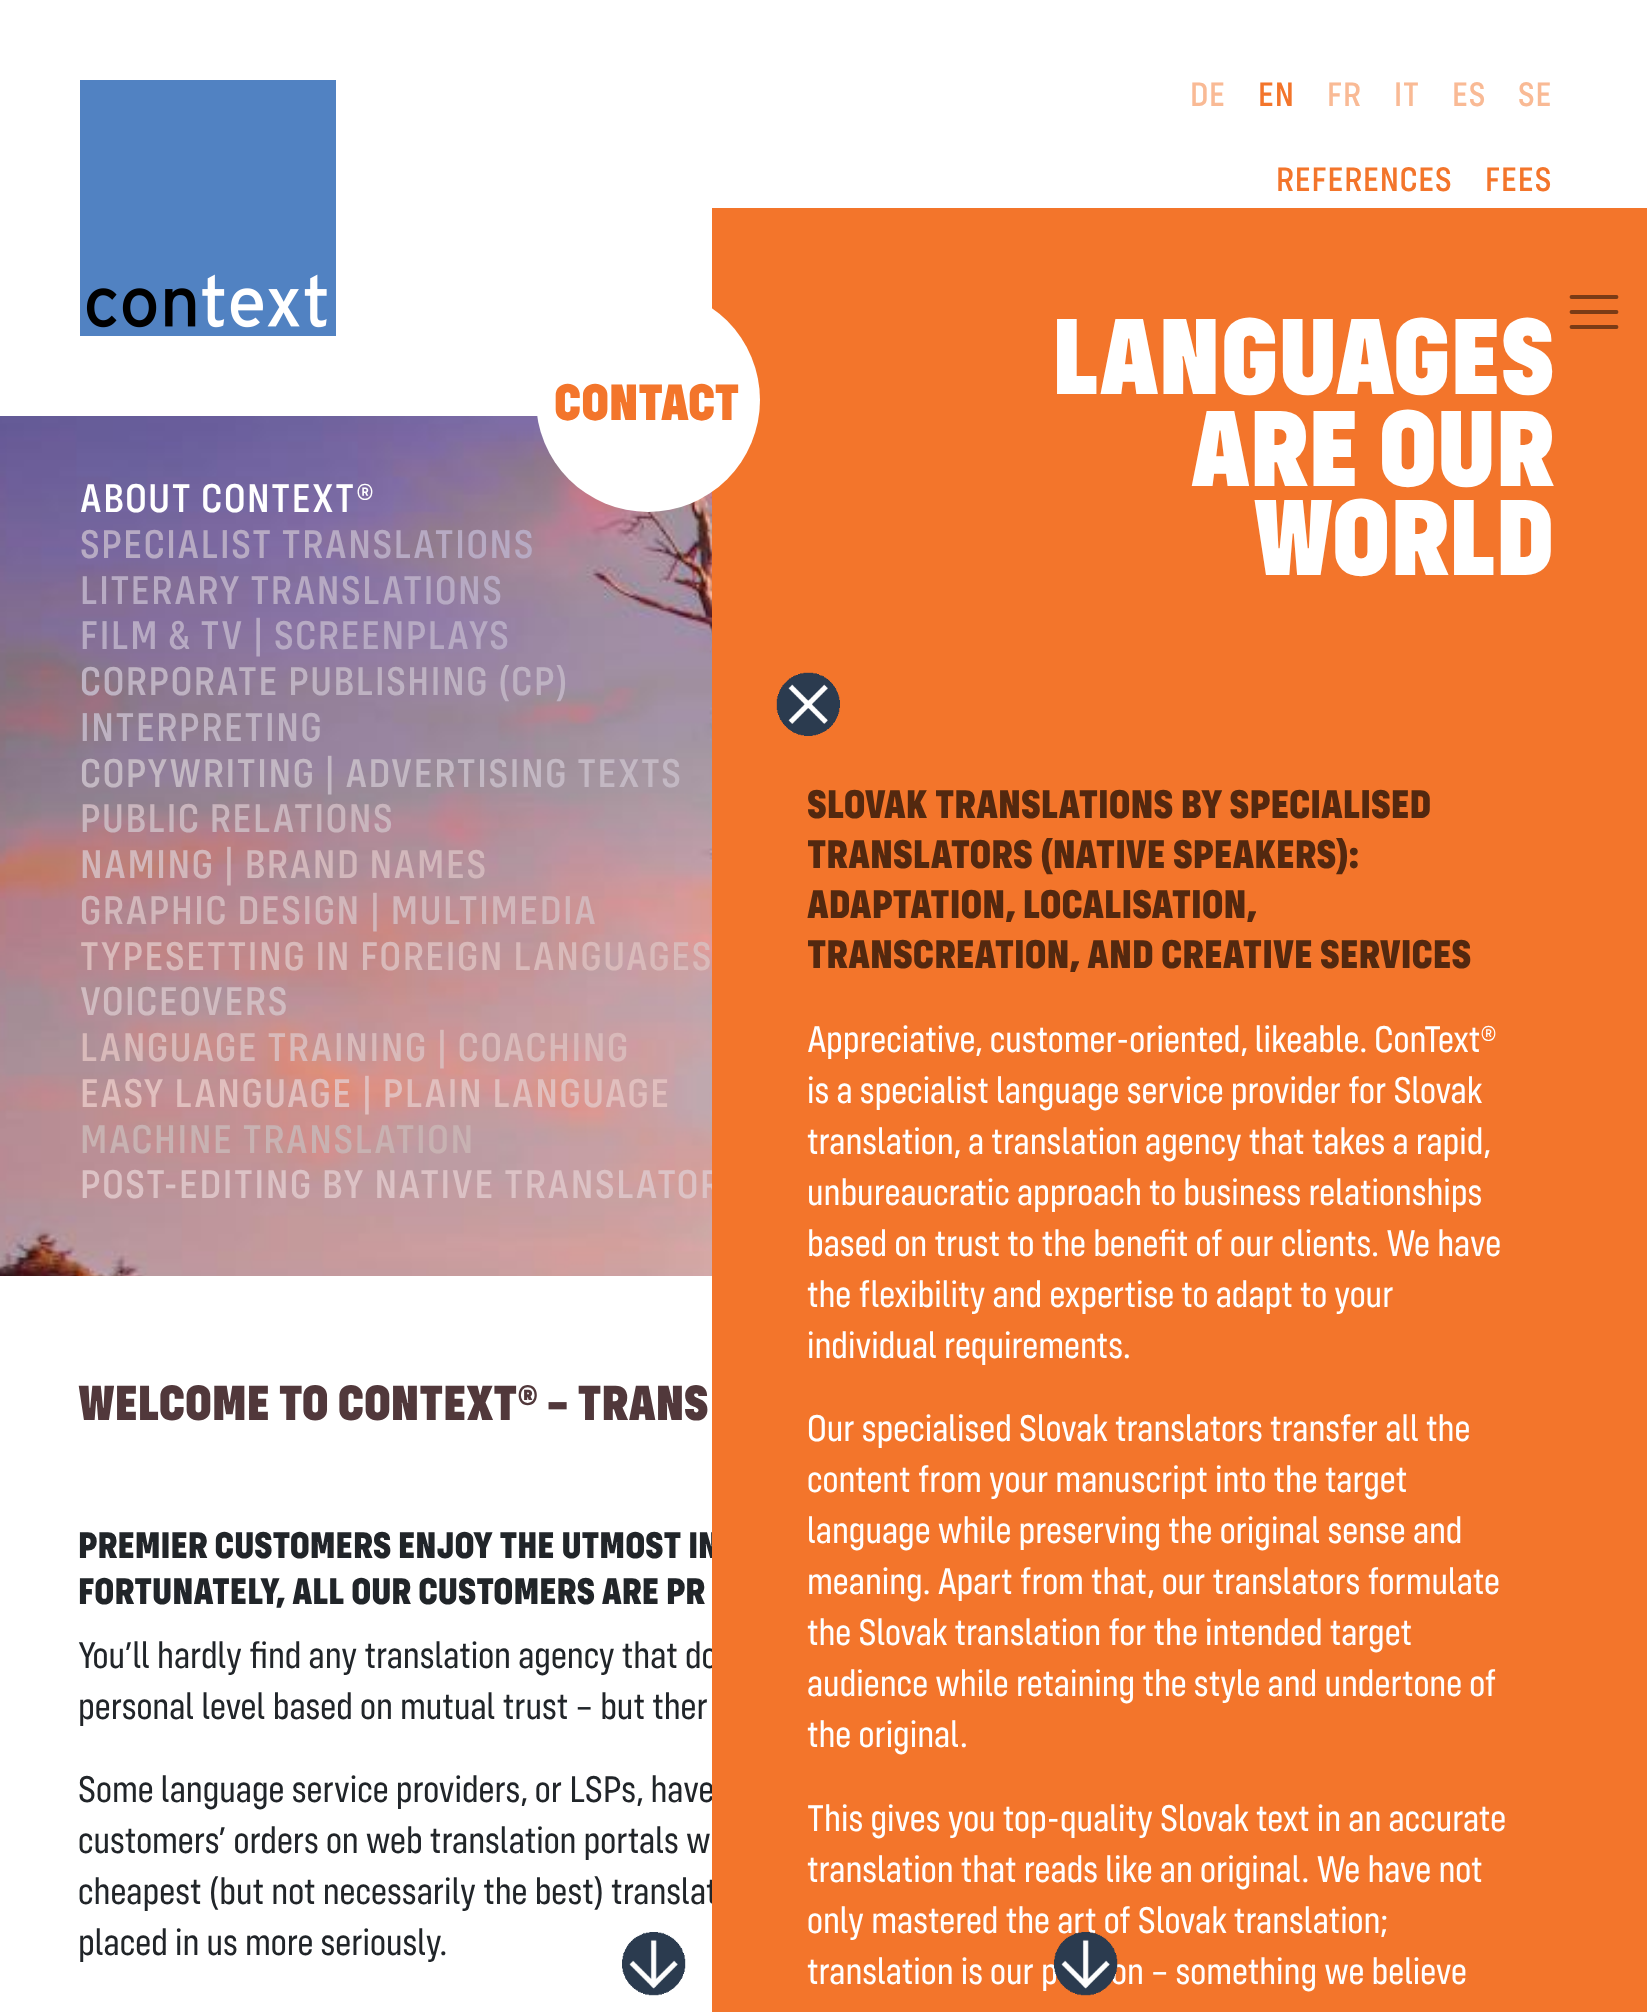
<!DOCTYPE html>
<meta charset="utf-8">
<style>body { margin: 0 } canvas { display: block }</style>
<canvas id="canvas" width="1647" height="2012"></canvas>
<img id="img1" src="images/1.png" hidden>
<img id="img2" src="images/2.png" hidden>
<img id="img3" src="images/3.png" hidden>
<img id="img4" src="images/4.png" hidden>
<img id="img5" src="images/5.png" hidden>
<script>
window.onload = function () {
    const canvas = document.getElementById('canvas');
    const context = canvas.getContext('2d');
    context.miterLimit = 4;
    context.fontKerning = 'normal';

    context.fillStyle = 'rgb(255, 255, 255)';
    context.fillRect(0, 0, 1647, 2012);
    context.drawImage(document.getElementById('img1'), 80, 80, 256, 256);
    context.fillStyle = 'rgb(243, 117, 43)';
    context.fillRect(1552, 208, 95, 1804);
    context.beginPath();
    context.moveTo(1571.5, 297);
    context.lineTo(1616.5, 297);
    context.moveTo(1571.5, 312);
    context.lineTo(1616.5, 312);
    context.moveTo(1571.5, 327);
    context.lineTo(1616.5, 327);
    context.strokeStyle = 'rgb(122, 59, 22)';
    context.lineWidth = 3.8;
    context.lineCap = 'round';
    context.stroke();
    context.drawImage(document.getElementById('img2'), 0, 416, 712, 860);
    context.drawImage(document.getElementById('img3'), 622, 1932, 64, 64);
    context.fillRect(712, 208, 840, 208);
    context.letterSpacing = '0.75px';
    context.font = '500 35.25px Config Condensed';
    context.fillStyle = 'rgb(249, 186, 149)';
    context.fillText('DE', 1190, 106);
    context.fillStyle = 'rgb(243, 117, 43)';
    context.fillText('EN', 1258, 106);
    context.fillStyle = 'rgb(249, 186, 149)';
    context.fillText('FR', 1327, 106);
    context.fillText('IT', 1394, 106);
    context.fillText('ES', 1452, 106);
    context.fillText('SE', 1518, 106);
    context.fillStyle = 'rgb(243, 117, 43)';
    context.fillText('REFERENCES', 1276, 191);
    context.fillText('FEES', 1485, 191);
    context.letterSpacing = '0px';
    context.font = '900 112px Config Condensed';
    context.fillStyle = 'rgb(255, 255, 255)';
    context.fillText('LANGUAGES', 1052, 394);
    context.letterSpacing = '1.6px';
    context.font = '500 41.6px Config Condensed';
    context.fillText('ABOUT CONTEXT®', 80, 512);
    context.fillStyle = 'rgb(183, 170, 195)';
    context.fillText('SPECIALIST TRANSLATIONS', 80, 558);
    context.fillText('LITERARY TRANSLATIONS', 80, 604);
    context.fillText('FILM & TV | SCREENPLAYS', 80, 649);
    context.fillStyle = 'rgb(190, 178, 194)';
    context.fillText('CORPORATE PUBLISHING (CP)', 80, 695);
    context.fillText('INTERPRETING', 80, 741);
    context.fillStyle = 'rgb(195, 184, 195)';
    context.fillText('COPYWRITING | ADVERTISING TEXTS', 80, 787);
    context.fillStyle = 'rgb(201, 181, 189)';
    context.fillText('PUBLIC RELATIONS', 80, 832);
    context.fillStyle = 'rgb(210, 183, 187)';
    context.fillText('NAMING | BRAND NAMES', 80, 878);
    context.fillText('GRAPHIC DESIGN | MULTIMEDIA', 80, 924);
    context.fillStyle = 'rgb(217, 186, 186)';
    context.fillText('TYPESETTING IN FOREIGN LANGUAGES', 80, 970);
    context.fillStyle = 'rgb(209, 188, 193)';
    context.fillText('VOICEOVERS', 80, 1015);
    context.fillStyle = 'rgb(217, 186, 186)';
    context.fillText('LANGUAGE TRAINING | COACHING', 80, 1061);
    context.fillStyle = 'rgb(225, 191, 190)';
    context.fillText('EASY LANGUAGE | PLAIN LANGUAGE', 80, 1107);
    context.fillStyle = 'rgb(200, 178, 178)';
    context.fillText('MACHINE TRANSLATION', 80, 1153);
    context.fillStyle = 'rgb(220, 194, 197)';
    context.fillText('POST-EDITING BY NATIVE TRANSLATOR', 80, 1198);
    context.letterSpacing = '0px';
    context.font = '900 51.25px Config Condensed';
    context.fillStyle = 'rgb(81, 56, 59)';
    context.fillText('WELCOME TO CONTEXT® – TRANS', 78, 1420);
    context.font = '800 38.4px Config Condensed';
    context.fillStyle = 'rgb(33, 37, 41)';
    context.fillText('PREMIER CUSTOMERS ENJOY THE UTMOST IN', 78, 1558);
    context.fillText('FORTUNATELY, ALL OUR CUSTOMERS ARE PR', 78, 1604);
    context.font = '38.4px Config Condensed';
    context.fillText('You’ll hardly find any translation agency that do', 78, 1668);
    context.fillText('personal level based on mutual trust – but ther', 78, 1719);
    context.fillText('Some language service providers, or LSPs, have', 78, 1802);
    context.fillText('customers’ orders on web translation portals w', 78, 1853);
    context.fillText('cheapest (but not necessarily the best) translat', 78, 1904);
    context.fillText('placed in us more seriously.', 78, 1955);
    context.fillStyle = 'rgb(243, 117, 43)';
    context.fillRect(712, 416, 840, 1596);
    context.fillStyle = 'rgb(255, 255, 255)';
    context.beginPath();
    context.arc(648, 400, 112, 0, 2 * Math.PI);
    context.fill();
    context.font = '900 53px Config Condensed';
    context.fillStyle = 'rgb(243, 117, 43)';
    context.fillText('CONTACT', 554, 420);
    context.font = '900 112px Config Condensed';
    context.fillStyle = 'rgb(255, 255, 255)';
    context.fillText('WORLD', 1253, 575);
    context.fillText('ARE OUR', 1191, 486);
    context.drawImage(document.getElementById('img4'), 776, 672, 64, 64);
    context.font = '800 41.6px Config Condensed';
    context.fillStyle = 'rgb(83, 40, 15)';
    context.fillText('SLOVAK TRANSLATIONS BY SPECIALISED', 807, 818);
    context.fillText('TRANSLATORS (NATIVE SPEAKERS):', 807, 868);
    context.fillText('ADAPTATION, LOCALISATION,', 807, 918);
    context.fillText('TRANSCREATION, AND CREATIVE SERVICES', 807, 968);
    context.font = '38.4px Config Condensed';
    context.fillStyle = 'rgb(255, 255, 255)';
    context.fillText('Appreciative, customer-oriented, likeable. ConText®', 807, 1052);
    context.fillText('is a specialist language service provider for Slovak', 807, 1103);
    context.fillText('translation, a translation agency that takes a rapid,', 807, 1154);
    context.fillText('unbureaucratic approach to business relationships', 807, 1205);
    context.fillText('based on trust to the benefit of our clients. We have', 807, 1256);
    context.fillText('the flexibility and expertise to adapt to your', 807, 1307);
    context.fillText('individual requirements.', 807, 1358);
    context.fillText('Our specialised Slovak translators transfer all the', 807, 1441);
    context.fillText('content from your manuscript into the target', 807, 1492);
    context.fillText('language while preserving the original sense and', 807, 1543);
    context.fillText('meaning. Apart from that, our translators formulate', 807, 1594);
    context.fillText('the Slovak translation for the intended target', 807, 1645);
    context.fillText('audience while retaining the style and undertone of', 807, 1696);
    context.fillText('the original.', 807, 1747);
    context.fillText('This gives you top-quality Slovak text in an accurate', 807, 1831);
    context.fillText('translation that reads like an original. We have not', 807, 1882);
    context.fillText('only mastered the art of Slovak translation;', 807, 1933);
    context.fillText('translation is our p', 807, 1984);
    context.fillText('on – something we believe', 1111, 1984);
    context.drawImage(document.getElementById('img5'), 1054, 1932, 64, 64);
};
</script>
